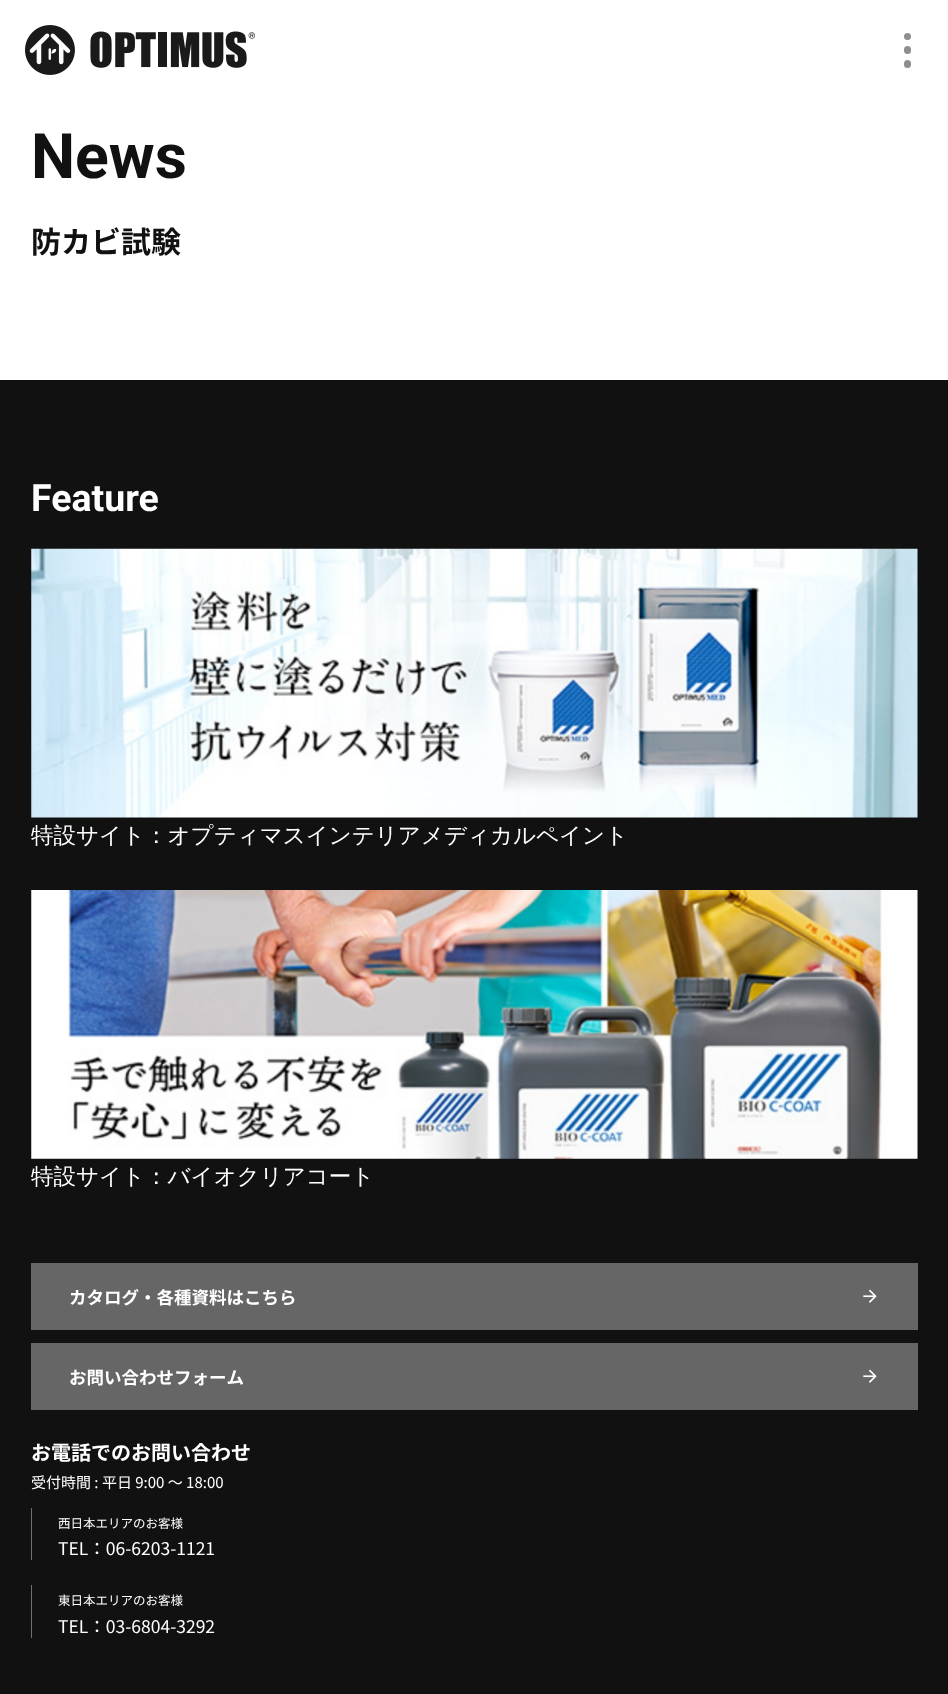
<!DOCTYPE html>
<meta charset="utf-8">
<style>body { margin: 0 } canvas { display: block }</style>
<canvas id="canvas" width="948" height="1694"></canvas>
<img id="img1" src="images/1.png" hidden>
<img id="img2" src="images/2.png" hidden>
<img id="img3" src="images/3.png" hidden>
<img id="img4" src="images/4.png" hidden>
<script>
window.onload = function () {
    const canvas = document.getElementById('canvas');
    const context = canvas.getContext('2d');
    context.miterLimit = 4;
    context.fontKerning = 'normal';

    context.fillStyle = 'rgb(255, 255, 255)';
    context.fillRect(0, 0, 948, 1694);
    context.drawImage(document.getElementById('img1'), 25, 25, 230, 50);
    context.fillStyle = 'rgb(142, 142, 142)';
    context.beginPath();
    context.arc(907.5, 36.5, 3.5, 0, 2 * Math.PI);
    context.fill();
    context.beginPath();
    context.roundRect(904, 46, 7, 8, 3.5);
    context.fill();
    context.beginPath();
    context.roundRect(904, 60, 7, 8, 3.5);
    context.fill();
    context.fillStyle = 'rgb(17, 17, 17)';
    context.fillRect(0, 380, 948, 1314);
    context.drawImage(document.getElementById('img2'), 31, 548, 887, 270);
    context.drawImage(document.getElementById('img3'), 31, 890, 887, 269);
    context.fillStyle = 'rgb(102, 102, 102)';
    context.fillRect(31, 1263, 887, 67);
    context.drawImage(document.getElementById('img4'), 863, 1289, 14, 14);
    context.fillRect(31, 1343, 887, 67);
    context.drawImage(document.getElementById('img4'), 863, 1369, 14, 14);
    context.fillStyle = 'rgb(112, 112, 112)';
    context.fillRect(31, 1508, 1, 52);
    context.fillRect(31, 1585, 1, 53);
    context.font = 'bold 62.5px Roboto';
    context.fillStyle = 'rgb(17, 17, 17)';
    context.fillText('News', 31, 178);
    context.font = 'bold 30px Noto Sans JP';
    context.fillText('防カビ試験', 31, 253);
    context.font = 'bold 37.5px Roboto';
    context.fillStyle = 'rgb(255, 255, 255)';
    context.fillText('Feature', 31, 511);
    context.font = '500 22.5px WenQuanYi Zen Hei';
    context.fillText('特設サイト：オプティマスインテリアメディカルペイント', 31, 843);
    context.fillText('特設サイト：バイオクリアコート', 31, 1184);
    context.font = 'bold 17.5px Noto Sans JP';
    context.fillText('カタログ・各種資料はこちら', 69, 1304);
    context.fillText('お問い合わせフォーム', 69, 1384);
    context.font = 'bold 20px Noto Sans JP';
    context.fillText('お電話でのお問い合わせ', 31, 1460);
    context.font = '15px Noto Sans JP';
    context.fillText('受付時間 : 平日 9:00 ～ 18:00', 31, 1488);
    context.font = '12.5px Noto Sans JP';
    context.fillText('⻄⽇本エリアのお客様', 58, 1528);
    context.font = '17.5px Noto Sans JP';
    context.fillText('TEL：06-6203-1121', 58, 1555);
    context.font = '12.5px Noto Sans JP';
    context.fillText('東⽇本エリアのお客様', 58, 1605);
    context.font = '17.5px Noto Sans JP';
    context.fillText('TEL：03-6804-3292', 58, 1633);
};
</script>
